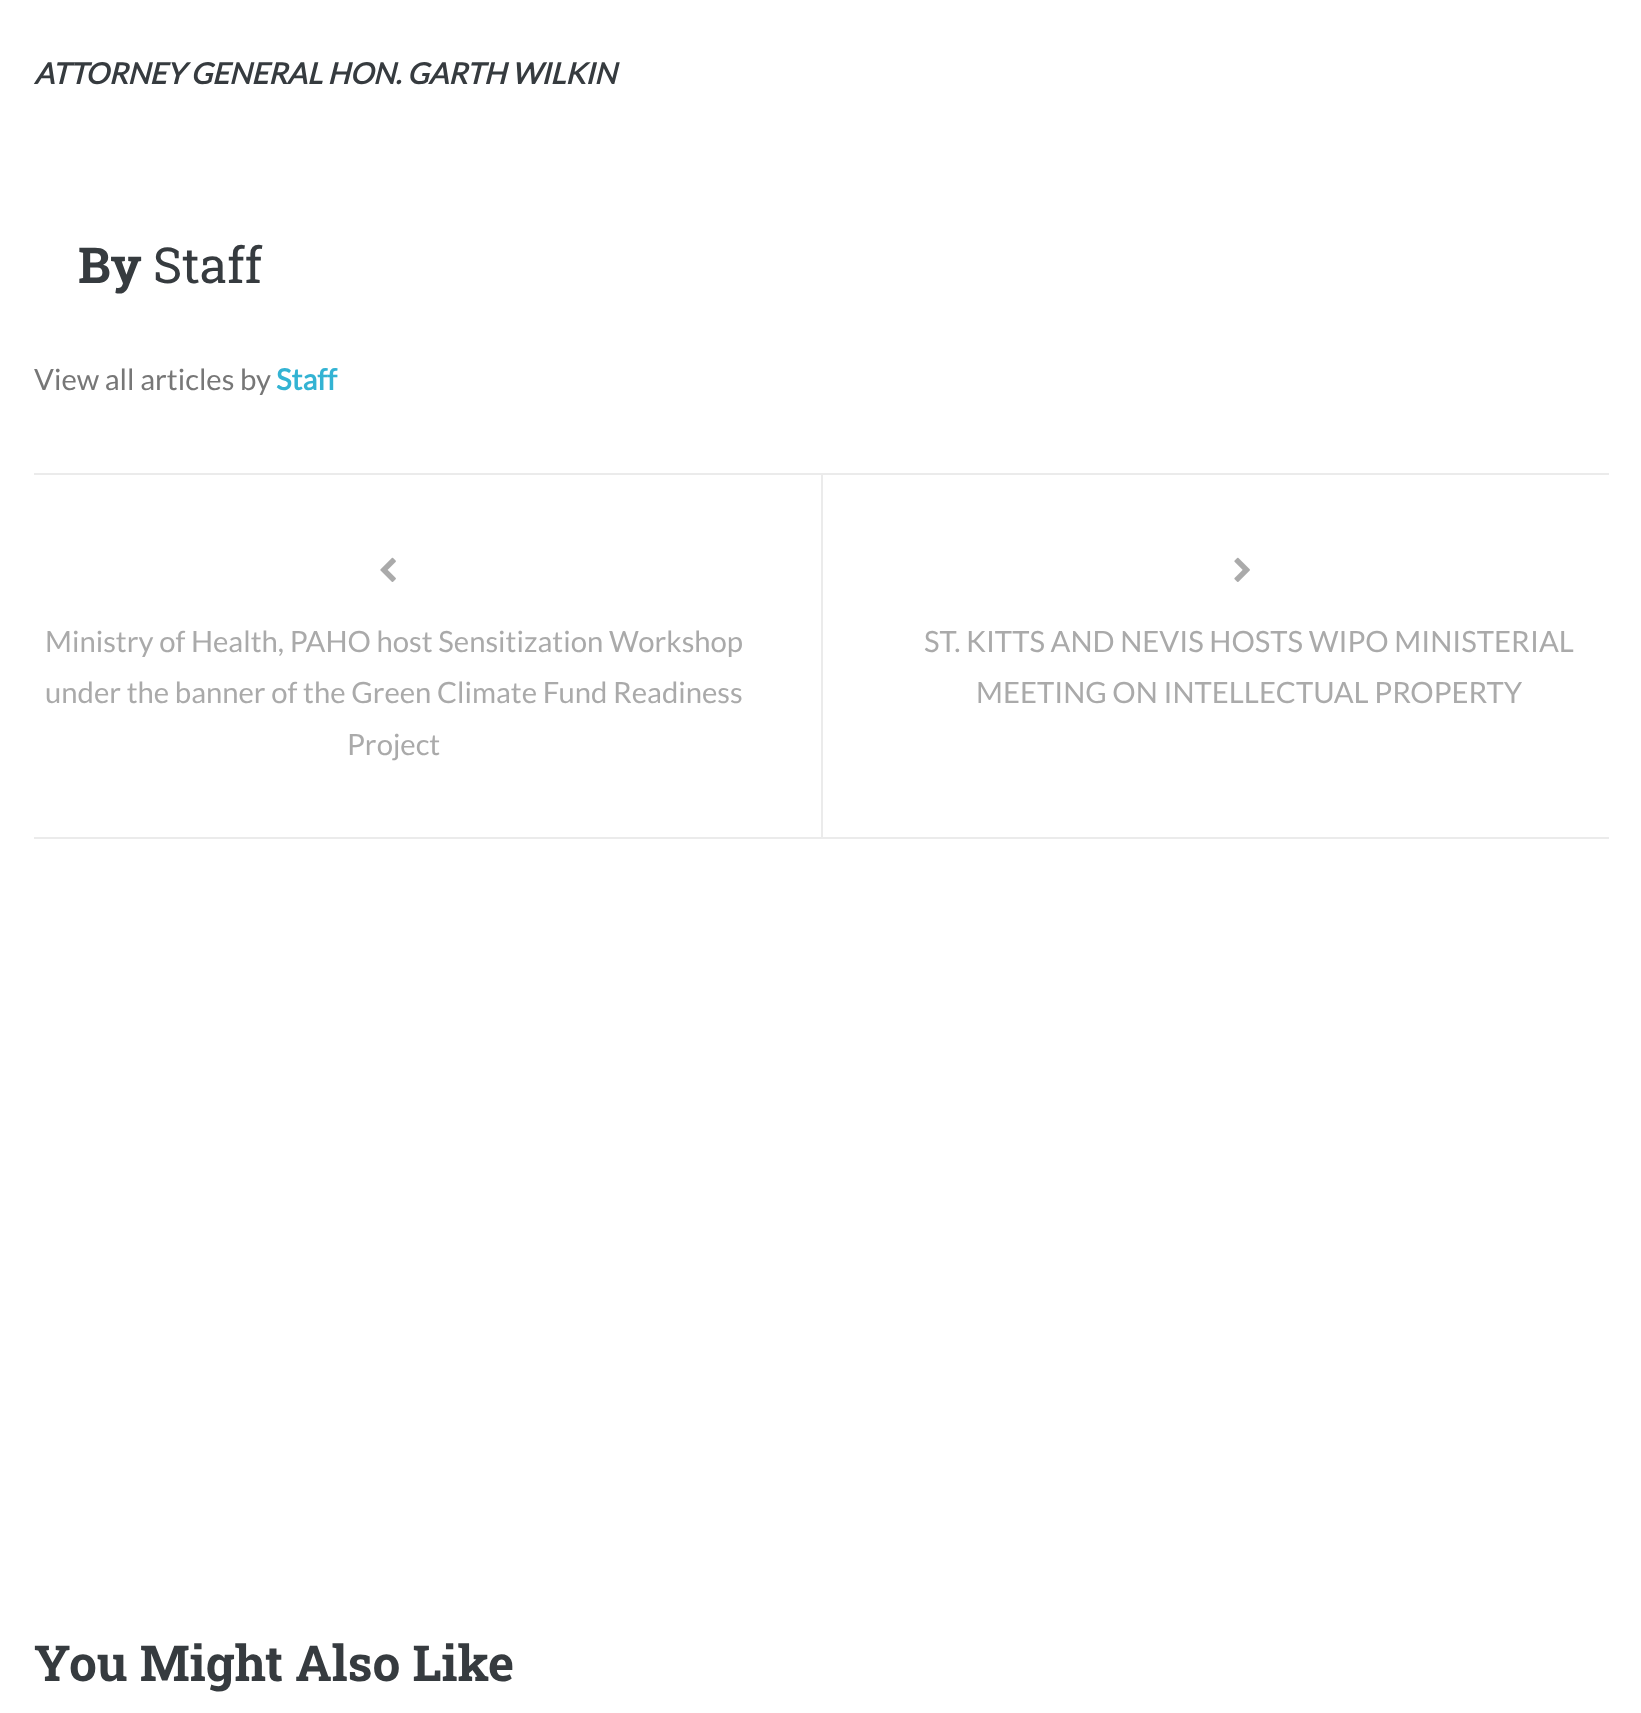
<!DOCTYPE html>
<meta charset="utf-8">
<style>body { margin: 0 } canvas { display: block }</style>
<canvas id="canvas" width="1641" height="1713"></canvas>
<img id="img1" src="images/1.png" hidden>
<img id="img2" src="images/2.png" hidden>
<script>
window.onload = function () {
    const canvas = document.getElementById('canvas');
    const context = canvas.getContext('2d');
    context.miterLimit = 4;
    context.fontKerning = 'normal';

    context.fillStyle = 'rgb(255, 255, 255)';
    context.fillRect(0, 0, 1641, 1713);
    context.fillStyle = 'rgb(235, 235, 235)';
    context.fillRect(34, 473, 1575, 2);
    context.fillRect(34, 837, 1575, 2);
    context.drawImage(document.getElementById('img1'), 380, 557, 16, 25);
    context.fillRect(821, 475, 2, 362);
    context.drawImage(document.getElementById('img2'), 1234, 557, 16, 25);
    context.font = 'italic bold 29.25px Lato';
    context.fillStyle = 'rgb(54, 59, 63)';
    context.fillText('ATTORNEY GENERAL HON. GARTH WILKIN', 34, 84);
    context.font = 'bold 49.5px Roboto Slab';
    context.fillText('By', 78, 283);
    context.font = '49.5px Roboto Slab';
    context.fillText('Staff', 153, 283);
    context.font = '29.25px Lato';
    context.fillStyle = 'rgb(119, 119, 119)';
    context.fillText('View all articles by', 34, 390);
    context.font = 'bold 29.25px Lato';
    context.fillStyle = 'rgb(51, 179, 211)';
    context.fillText('Staff', 276, 390);
    context.font = '29.25px Lato';
    context.fillStyle = 'rgb(170, 170, 170)';
    context.fillText('Ministry of Health, PAHO host Sensitization Workshop', 45, 652);
    context.fillText('under the banner of the Green Climate Fund Readiness', 45, 703);
    context.fillText('Project', 347, 755);
    context.fillText('ST. KITTS AND NEVIS HOSTS WIPO MINISTERIAL', 924, 652);
    context.fillText('MEETING ON INTELLECTUAL PROPERTY', 976, 703);
    context.font = 'bold 49.5px Roboto Slab';
    context.fillStyle = 'rgb(54, 59, 63)';
    context.fillText('You Might Also Like', 34, 1681);
};
</script>
